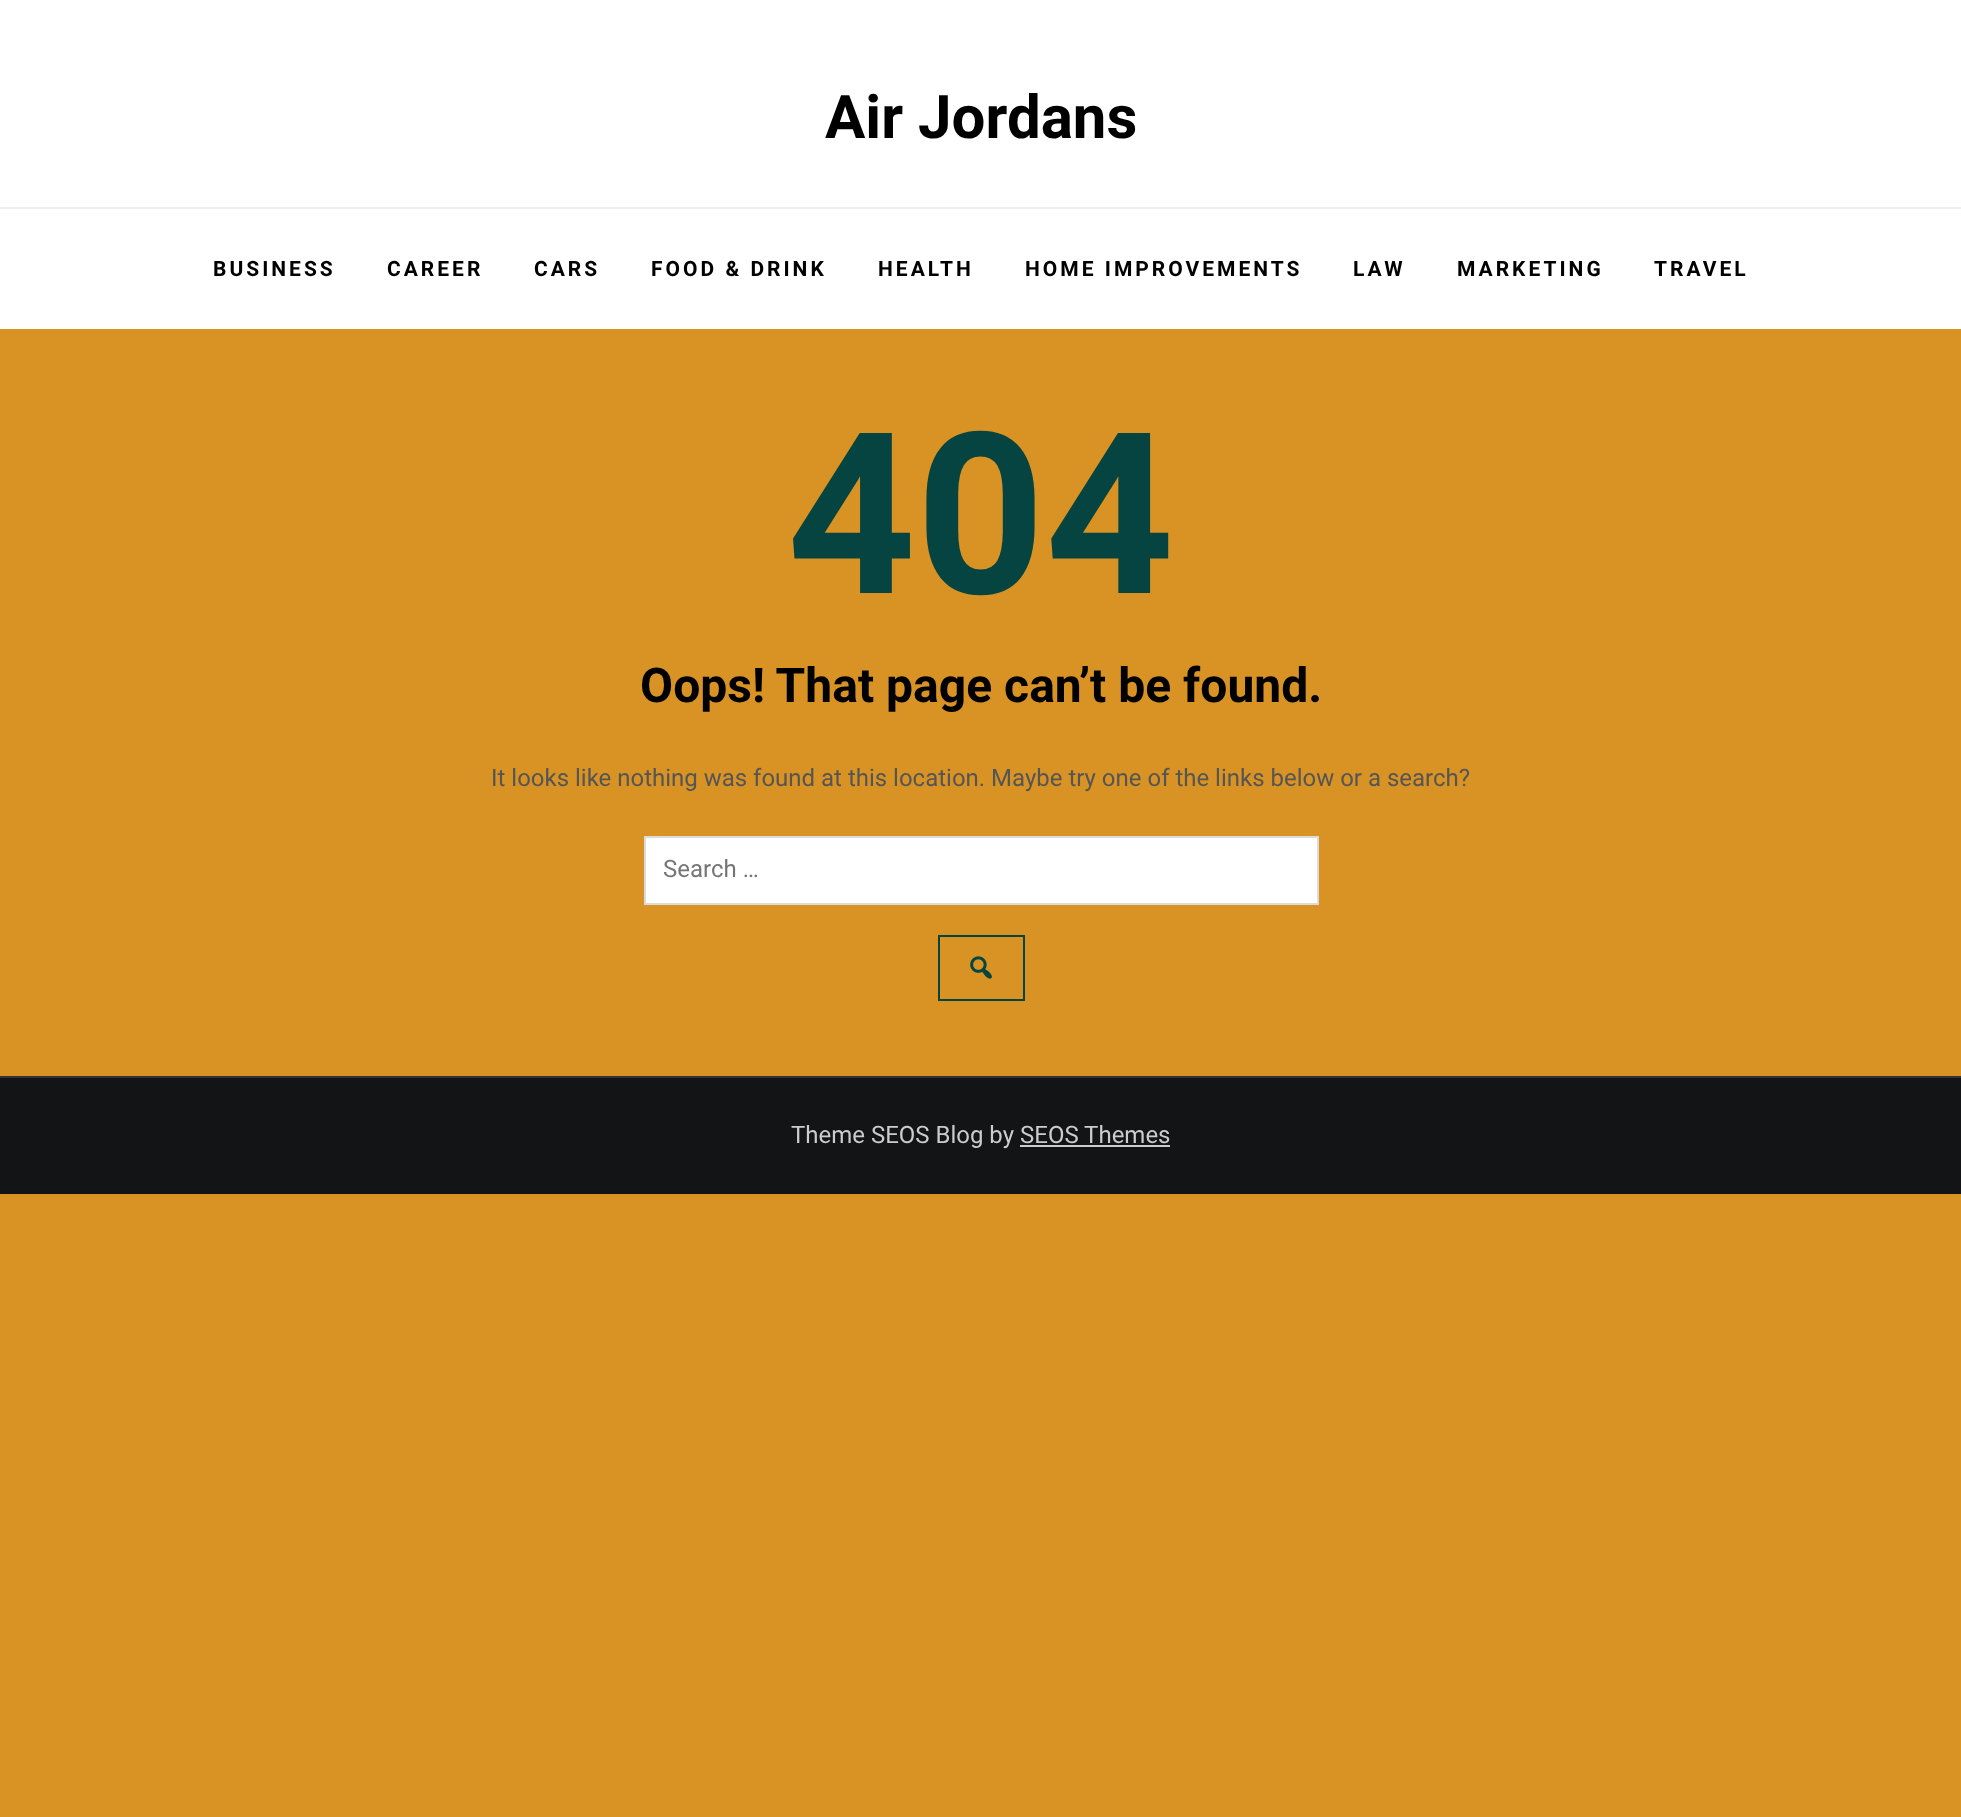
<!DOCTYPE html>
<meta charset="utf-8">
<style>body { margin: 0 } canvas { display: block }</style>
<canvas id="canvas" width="1961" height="1817"></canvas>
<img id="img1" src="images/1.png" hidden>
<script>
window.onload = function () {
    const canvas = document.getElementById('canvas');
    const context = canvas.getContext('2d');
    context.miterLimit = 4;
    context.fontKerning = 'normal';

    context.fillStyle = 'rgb(216, 147, 36)';
    context.fillRect(0, 0, 1961, 1817);
    context.fillStyle = 'rgb(255, 255, 255)';
    context.fillRect(0, 0, 1961, 329);
    context.fillStyle = 'rgb(238, 238, 238)';
    context.fillRect(0, 207, 1961, 2);
    context.fillStyle = 'rgb(255, 255, 255)';
    context.beginPath();
    context.rect(645, 837, 673, 67);
    context.fill();
    context.strokeStyle = 'rgb(219, 219, 219)';
    context.lineWidth = 2;
    context.stroke();
    context.strokeStyle = 'rgb(6, 68, 65)';
    context.strokeRect(939, 936, 85, 64);
    context.drawImage(document.getElementById('img1'), 970, 956, 22, 23);
    context.fillStyle = 'rgb(18, 20, 22)';
    context.fillRect(0, 1078, 1961, 116);
    context.fillStyle = 'rgb(51, 51, 51)';
    context.fillRect(0, 1076, 1961, 2);
    context.fillStyle = 'rgb(204, 204, 204)';
    context.fillRect(1020, 1145, 150, 2);
    context.font = 'bold 60px Roboto';
    context.fillStyle = 'rgb(0, 0, 0)';
    context.fillText('Air Jordans', 825, 138);
    context.letterSpacing = '3px';
    context.font = 'bold 21px Roboto';
    context.fillText('BUSINESS', 213, 276);
    context.fillText('CAREER', 387, 276);
    context.fillText('CARS', 534, 276);
    context.fillText('FOOD & DRINK', 651, 276);
    context.fillText('HEALTH', 878, 276);
    context.fillText('HOME IMPROVEMENTS', 1025, 276);
    context.fillText('LAW', 1353, 276);
    context.fillText('MARKETING', 1457, 276);
    context.fillText('TRAVEL', 1654, 276);
    context.letterSpacing = '0px';
    context.font = 'bold 225px Roboto';
    context.fillStyle = 'rgb(6, 68, 65)';
    context.fillText('404', 787, 593);
    context.font = 'bold 48px Roboto';
    context.fillStyle = 'rgb(0, 0, 0)';
    context.fillText('Oops! That page can’t be found.', 640, 702);
    context.font = '24px Roboto';
    context.fillStyle = 'rgb(85, 85, 85)';
    context.fillText('It looks like nothing was found at this location. Maybe try one of the links below or a search?', 491, 786);
    context.fillStyle = 'rgb(117, 117, 117)';
    context.fillText('Search …', 663, 877);
    context.fillStyle = 'rgb(204, 204, 204)';
    context.fillText('Theme SEOS Blog by SEOS Themes', 791, 1143);
};
</script>
